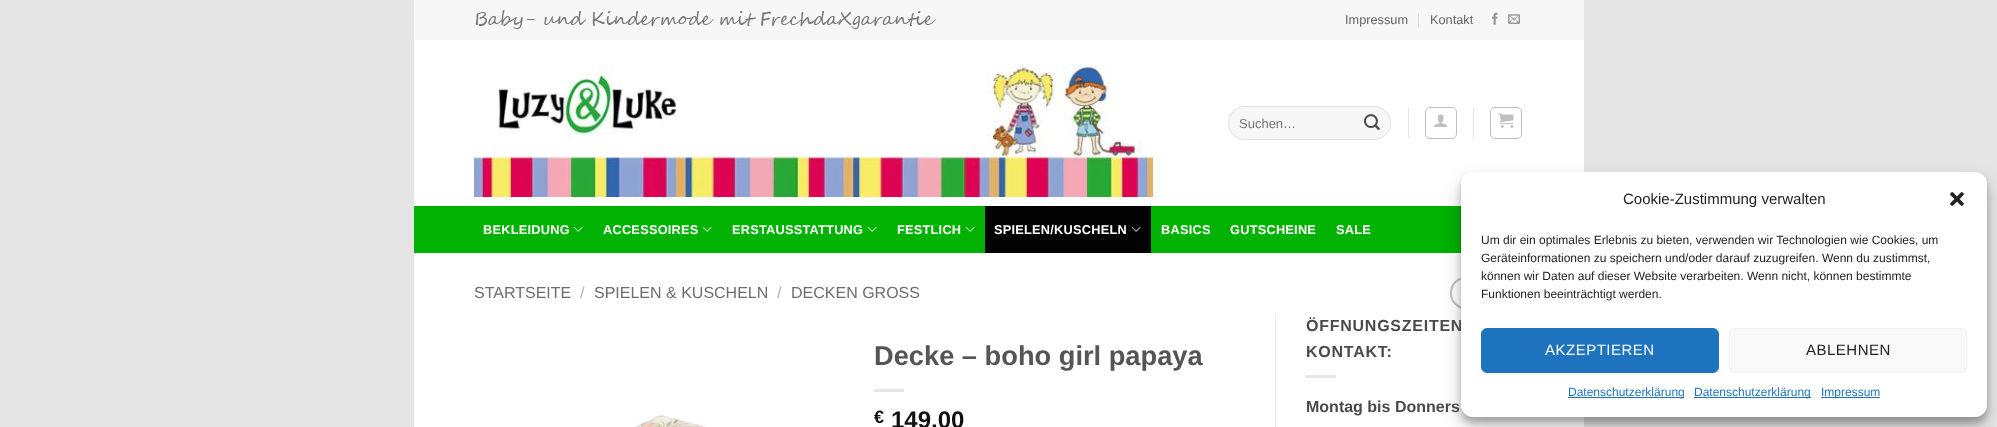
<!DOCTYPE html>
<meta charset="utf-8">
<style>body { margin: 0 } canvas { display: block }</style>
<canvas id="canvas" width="1997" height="427"></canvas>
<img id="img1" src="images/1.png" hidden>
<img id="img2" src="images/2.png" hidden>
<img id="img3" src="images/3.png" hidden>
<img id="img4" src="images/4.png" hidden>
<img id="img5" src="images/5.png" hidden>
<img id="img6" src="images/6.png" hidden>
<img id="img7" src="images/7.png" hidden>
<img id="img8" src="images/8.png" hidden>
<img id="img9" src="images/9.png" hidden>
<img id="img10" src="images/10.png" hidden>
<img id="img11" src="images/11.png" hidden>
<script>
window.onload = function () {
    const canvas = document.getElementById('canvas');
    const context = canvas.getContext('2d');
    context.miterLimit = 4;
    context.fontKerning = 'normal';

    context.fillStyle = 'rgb(229, 229, 229)';
    context.fillRect(0, 0, 1997, 427);
    context.fillStyle = 'rgb(255, 255, 255)';
    context.fillRect(414, 40, 1170, 387);
    context.fillStyle = 'rgb(247, 247, 247)';
    context.fillRect(414, 0, 1170, 40);
    context.drawImage(document.getElementById('img1'), 475, 10, 461, 19);
    context.fillStyle = 'rgb(222, 222, 222)';
    context.fillRect(1418, 13, 1, 15);
    context.drawImage(document.getElementById('img2'), 1492, 12, 6, 13);
    context.drawImage(document.getElementById('img3'), 1508, 14, 12, 10);
    context.drawImage(document.getElementById('img4'), 474, 64, 679, 133);
    context.fillStyle = 'rgb(247, 247, 247)';
    context.beginPath();
    context.roundRect(1228, 106, 163, 34, 17);
    context.fill();
    context.beginPath();
    context.roundRect(1228.5, 106.5, 162, 33, 16.5);
    context.strokeStyle = 'rgba(0, 0, 0, 0.09)';
    context.stroke();
    context.drawImage(document.getElementById('img5'), 1364, 114, 16, 16);
    context.fillStyle = 'rgb(230, 230, 230)';
    context.fillRect(1408, 108, 1, 30);
    context.beginPath();
    context.roundRect(1425.5, 107.5, 31, 31, 4.5);
    context.strokeStyle = 'rgb(192, 192, 192)';
    context.stroke();
    context.drawImage(document.getElementById('img6'), 1434, 114, 14, 13);
    context.fillRect(1473, 108, 1, 30);
    context.beginPath();
    context.roundRect(1490.5, 107.5, 31, 31, 4.5);
    context.stroke();
    context.drawImage(document.getElementById('img7'), 1498, 113, 16, 15);
    context.fillStyle = 'rgb(2, 178, 2)';
    context.fillRect(414, 206, 1047, 47);
    context.drawImage(document.getElementById('img8'), 573, 226, 10, 6);
    context.drawImage(document.getElementById('img8'), 702, 226, 10, 6);
    context.drawImage(document.getElementById('img8'), 867, 226, 10, 6);
    context.drawImage(document.getElementById('img8'), 965, 226, 10, 6);
    context.fillStyle = 'rgb(2, 2, 2)';
    context.fillRect(985, 206, 166, 47);
    context.drawImage(document.getElementById('img9'), 1131, 226, 10, 6);
    context.beginPath();
    context.roundRect(1451, 278, 29, 30, 14.5);
    context.lineWidth = 2;
    context.stroke();
    context.fillStyle = 'rgb(236, 236, 236)';
    context.fillRect(1275, 313, 1, 114);
    context.drawImage(document.getElementById('img10'), 635, 415, 71, 12);
    context.fillStyle = 'rgb(230, 230, 230)';
    context.fillRect(874, 389, 30, 3);
    context.fillRect(1306, 375, 30, 3);
    context.fillStyle = 'rgba(0, 0, 0, 0.23)';
    context.filter = 'blur(3px)';
    context.beginPath();
    context.roundRect(1461, 178, 526, 245, 12);
    context.fill();
    context.filter = 'none';
    context.fillStyle = 'rgba(0, 0, 0, 0.19)';
    context.filter = 'blur(10px)';
    context.beginPath();
    context.roundRect(1461, 182, 526, 245, 12);
    context.fill();
    context.filter = 'none';
    context.font = '12.75px Liberation Sans';
    context.fillStyle = 'rgb(100, 100, 100)';
    context.fillText('Impressum', 1345, 24);
    context.fillText('Kontakt', 1430, 24);
    context.font = '13px Liberation Sans';
    context.fillStyle = 'rgb(117, 117, 117)';
    context.fillText('Suchen…', 1239, 128);
    context.letterSpacing = '0.25px';
    context.font = 'bold 12.75px Liberation Sans';
    context.fillStyle = 'rgb(255, 255, 255)';
    context.fillText('BEKLEIDUNG', 483, 234);
    context.fillText('ACCESSOIRES', 603, 234);
    context.fillText('ERSTAUSSTATTUNG', 732, 234);
    context.fillText('FESTLICH', 897, 234);
    context.fillText('SPIELEN/KUSCHELN', 994, 234);
    context.fillText('BASICS', 1161, 234);
    context.fillText('GUTSCHEINE', 1230, 234);
    context.fillText('SALE', 1336, 234);
    context.letterSpacing = '0px';
    context.font = '16px Liberation Sans';
    context.fillStyle = 'rgb(110, 110, 110)';
    context.fillText('STARTSEITE', 474, 298);
    context.fillStyle = 'rgb(178, 178, 178)';
    context.fillText('/', 580, 298);
    context.fillStyle = 'rgb(110, 110, 110)';
    context.fillText('SPIELEN & KUSCHELN', 594, 298);
    context.fillStyle = 'rgb(178, 178, 178)';
    context.fillText('/', 777, 298);
    context.fillStyle = 'rgb(110, 110, 110)';
    context.fillText('DECKEN GROSS', 791, 298);
    context.font = 'bold 27.25px Liberation Sans';
    context.fillStyle = 'rgb(85, 85, 85)';
    context.fillText('Decke – boho girl papaya', 874, 365);
    context.font = 'bold 18px Liberation Sans';
    context.fillStyle = 'rgb(17, 17, 17)';
    context.fillText('€', 874, 423);
    context.font = 'bold 24px Liberation Sans';
    context.fillText('149,00', 891, 428);
    context.letterSpacing = '0.75px';
    context.font = 'bold 16px Liberation Sans';
    context.fillStyle = 'rgb(74, 74, 74)';
    context.fillText('ÖFFNUNGSZEITEN', 1306, 331);
    context.fillText('KONTAKT:', 1306, 357);
    context.letterSpacing = '0px';
    context.fillText('Montag bis Donners', 1306, 412);
    context.fillStyle = 'rgb(255, 255, 255)';
    context.beginPath();
    context.roundRect(1461, 172, 526, 245, 12);
    context.fill();
    context.font = '15px Liberation Sans';
    context.fillStyle = 'rgb(34, 34, 34)';
    context.fillText('Cookie-Zustimmung verwalten', 1623, 204);
    context.drawImage(document.getElementById('img11'), 1950, 192, 14, 14);
    context.font = '12px Liberation Sans';
    context.fillText('Um dir ein optimales Erlebnis zu bieten, verwenden wir Technologien wie Cookies, um', 1481, 244);
    context.fillText('Geräteinformationen zu speichern und/oder darauf zuzugreifen. Wenn du zustimmst,', 1481, 262);
    context.fillText('können wir Daten auf dieser Website verarbeiten. Wenn nicht, können bestimmte', 1481, 280);
    context.fillText('Funktionen beeinträchtigt werden.', 1481, 298);
    context.fillStyle = 'rgb(30, 115, 190)';
    context.beginPath();
    context.roundRect(1481.5, 328.5, 237, 44, 5.5);
    context.fill();
    context.strokeStyle = 'rgb(30, 115, 190)';
    context.lineWidth = 1;
    context.stroke();
    context.letterSpacing = '0.5px';
    context.font = '15px Liberation Sans';
    context.fillStyle = 'rgb(255, 255, 255)';
    context.fillText('AKZEPTIEREN', 1545, 355);
    context.fillStyle = 'rgb(249, 249, 249)';
    context.beginPath();
    context.roundRect(1729.5, 328.5, 237, 44, 5.5);
    context.fill();
    context.strokeStyle = 'rgb(242, 242, 242)';
    context.stroke();
    context.fillStyle = 'rgb(34, 34, 34)';
    context.fillText('ABLEHNEN', 1806, 355);
    context.fillStyle = 'rgb(30, 115, 190)';
    context.fillRect(1568, 397, 116, 1);
    context.letterSpacing = '0px';
    context.font = '12px Liberation Sans';
    context.fillText('Datenschutzerklärung', 1568, 396);
    context.fillRect(1694, 397, 117, 1);
    context.fillText('Datenschutzerklärung', 1694, 396);
    context.fillRect(1821, 397, 59, 1);
    context.fillText('Impressum', 1821, 396);
};
</script>
